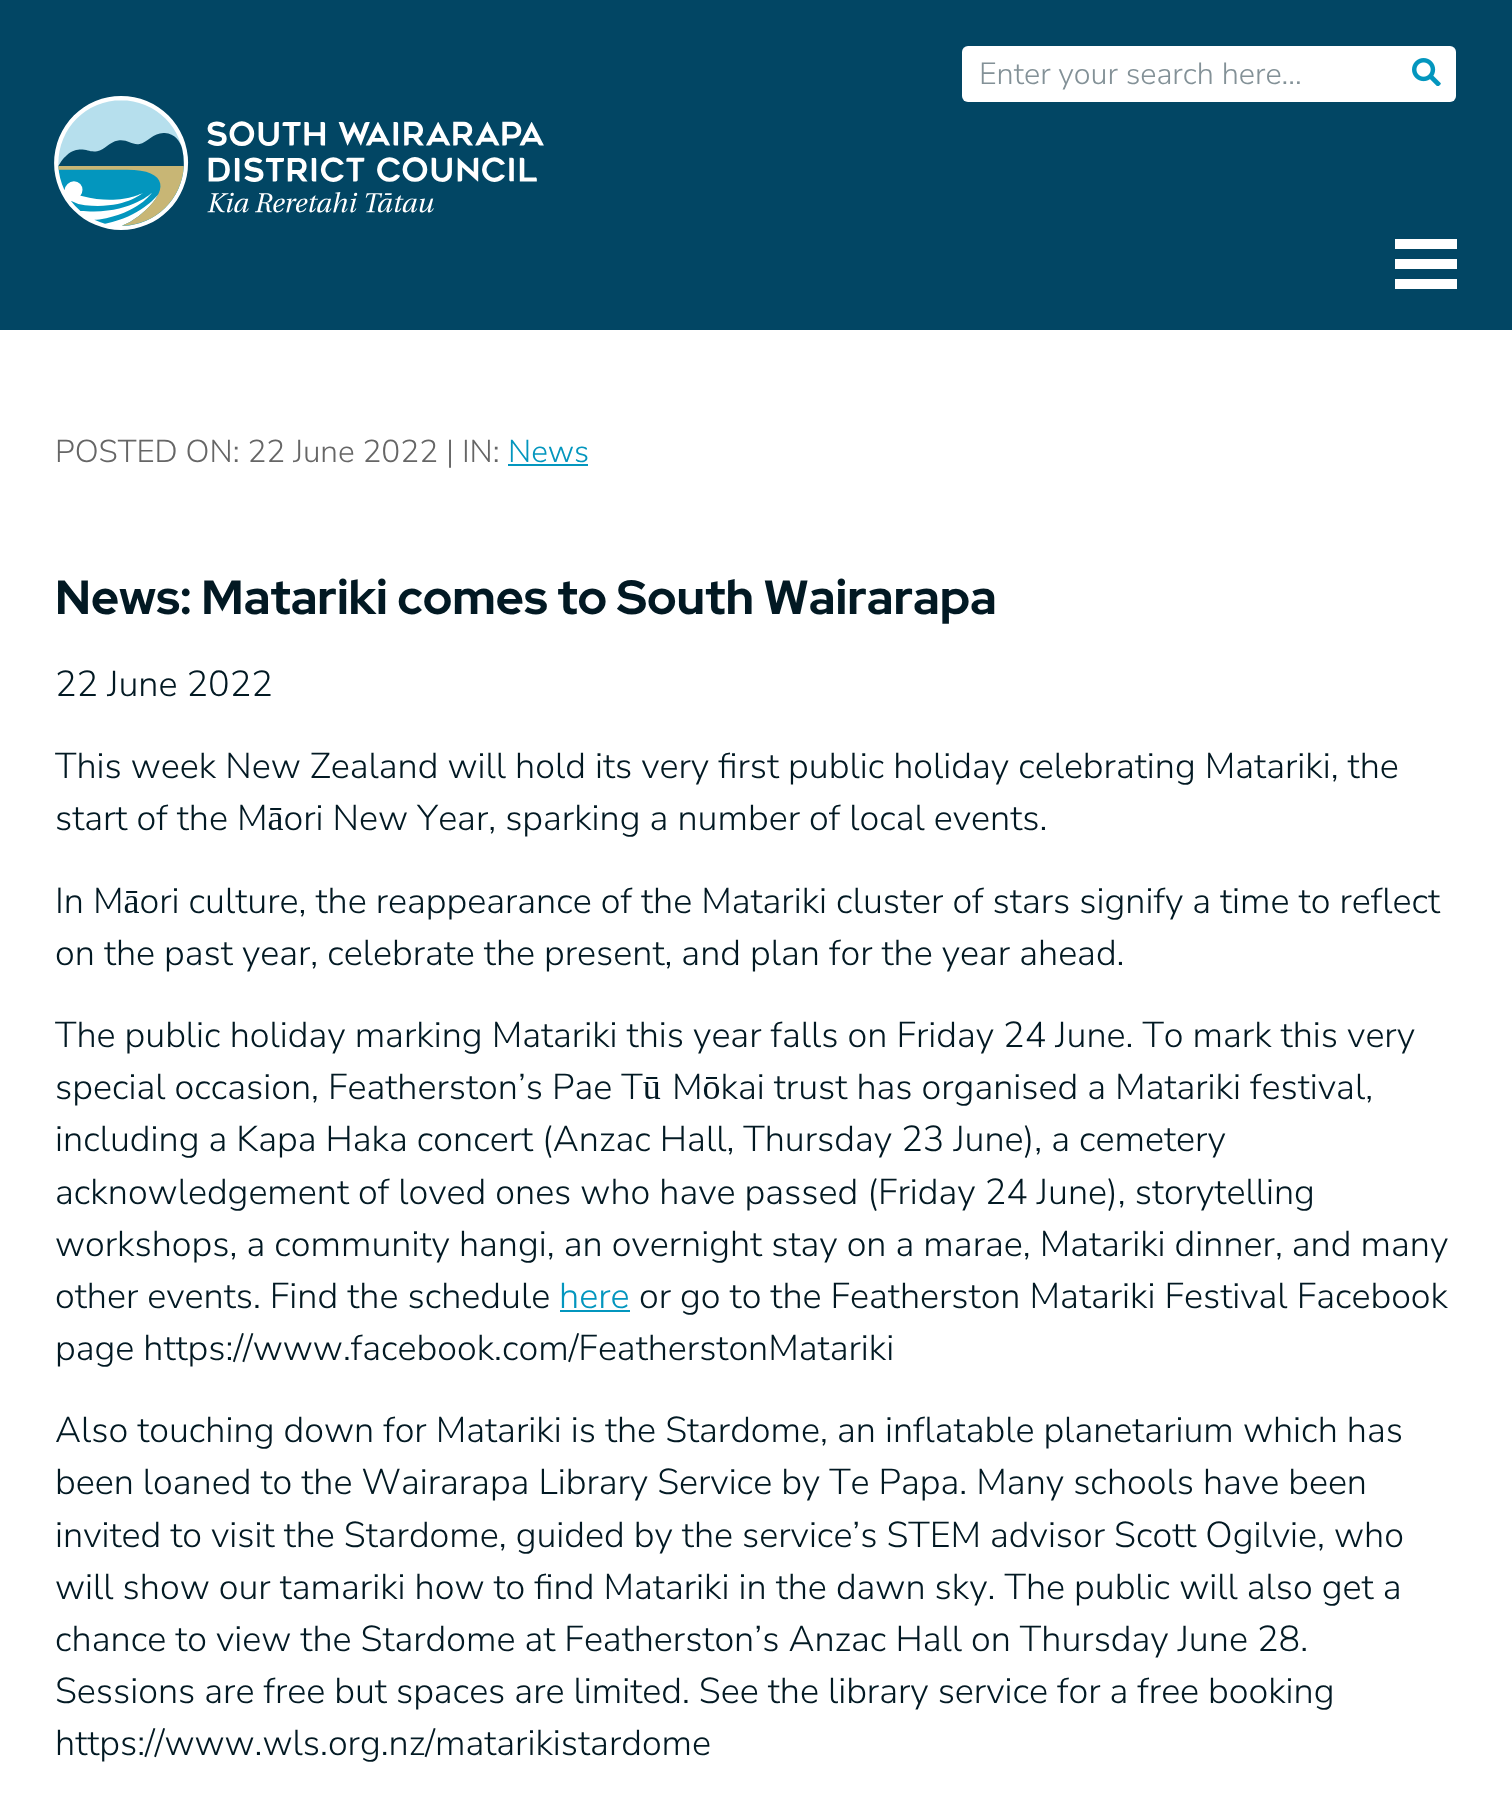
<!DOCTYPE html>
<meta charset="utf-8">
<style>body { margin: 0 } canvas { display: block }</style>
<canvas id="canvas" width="1512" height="1811"></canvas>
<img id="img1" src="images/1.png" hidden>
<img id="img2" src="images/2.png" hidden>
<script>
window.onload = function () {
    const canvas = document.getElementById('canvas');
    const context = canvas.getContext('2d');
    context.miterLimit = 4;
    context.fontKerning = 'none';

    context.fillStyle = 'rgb(255, 255, 255)';
    context.fillRect(0, 0, 1512, 1811);
    context.fillStyle = 'rgb(2, 70, 100)';
    context.fillRect(0, 0, 1512, 330);
    context.fillStyle = 'rgb(255, 255, 255)';
    context.beginPath();
    context.roundRect(962, 46, 494, 56, 6);
    context.fill();
    context.drawImage(document.getElementById('img1'), 1412, 58, 29, 28);
    context.drawImage(document.getElementById('img2'), 54, 96, 490, 134);
    context.fillRect(1395, 239, 62, 10);
    context.fillRect(1395, 259, 62, 10);
    context.fillRect(1395, 279, 62, 10);
    context.fillStyle = 'rgb(3, 150, 190)';
    context.fillRect(508, 464, 80, 2);
    context.fillRect(560, 1310, 70, 2);
    context.font = '200 30.6px Nunito Sans';
    context.fillStyle = 'rgb(131, 145, 151)';
    context.fillText('Enter your search here...', 979, 84);
    context.font = '200 31.5px Nunito Sans';
    context.fillStyle = 'rgb(102, 102, 102)';
    context.fillText('POSTED ON: 22 June 2022 | IN:', 55, 462);
    context.fillStyle = 'rgb(3, 150, 190)';
    context.fillText('News', 508, 462);
    context.font = '800 48px Red Hat Display';
    context.fillStyle = 'rgb(2, 25, 35)';
    context.fillText('News: Matariki comes to South Wairarapa', 55, 614);
    context.font = '200 36px Nunito Sans';
    context.fillText('22 June 2022', 55, 696);
    context.fillText('This week New Zealand will hold its very first public holiday celebrating Matariki, the', 55, 778);
    context.fillText('start of the Māori New Year, sparking a number of local events.', 55, 830);
    context.fillText('In Māori culture, the reappearance of the Matariki cluster of stars signify a time to reflect', 55, 913);
    context.fillText('on the past year, celebrate the present, and plan for the year ahead.', 55, 965);
    context.fillText('The public holiday marking Matariki this year falls on Friday 24 June. To mark this very', 55, 1047);
    context.fillText('special occasion, Featherston’s Pae Tū', 55, 1099);
    context.fillText('Mōkai trust has organised a Matariki festival,', 672, 1099);
    context.fillText('including a Kapa Haka concert (Anzac Hall, Thursday 23 June), a cemetery', 55, 1151);
    context.fillText('acknowledgement of loved ones who have passed (Friday 24 June), storytelling', 55, 1204);
    context.fillText('workshops, a community hangi, an overnight stay on a marae, Matariki dinner, and many', 55, 1256);
    context.fillText('other events. Find the schedule', 55, 1308);
    context.fillStyle = 'rgb(3, 150, 190)';
    context.fillText('here', 559, 1308);
    context.fillStyle = 'rgb(2, 25, 35)';
    context.fillText('or go to the Featherston Matariki Festival Facebook', 639, 1308);
    context.fillText('page https://www.facebook.com/FeatherstonMatariki', 55, 1360);
    context.fillText('Also touching down for Matariki is the Stardome, an inflatable planetarium which has', 55, 1442);
    context.fillText('been loaned to the Wairarapa Library Service by Te Papa. Many schools have been', 55, 1494);
    context.fillText('invited to visit the Stardome, guided by the service’s STEM advisor Scott Ogilvie, who', 55, 1547);
    context.fillText('will show our tamariki how to find Matariki in the dawn sky. The public will also get a', 55, 1599);
    context.fillText('chance to view the Stardome at Featherston’s Anzac Hall on Thursday June 28.', 55, 1651);
    context.fillText('Sessions are free but spaces are limited. See the library service for a free booking', 55, 1703);
    context.fillText('https://www.wls.org.nz/matarikistardome', 55, 1755);
};
</script>
